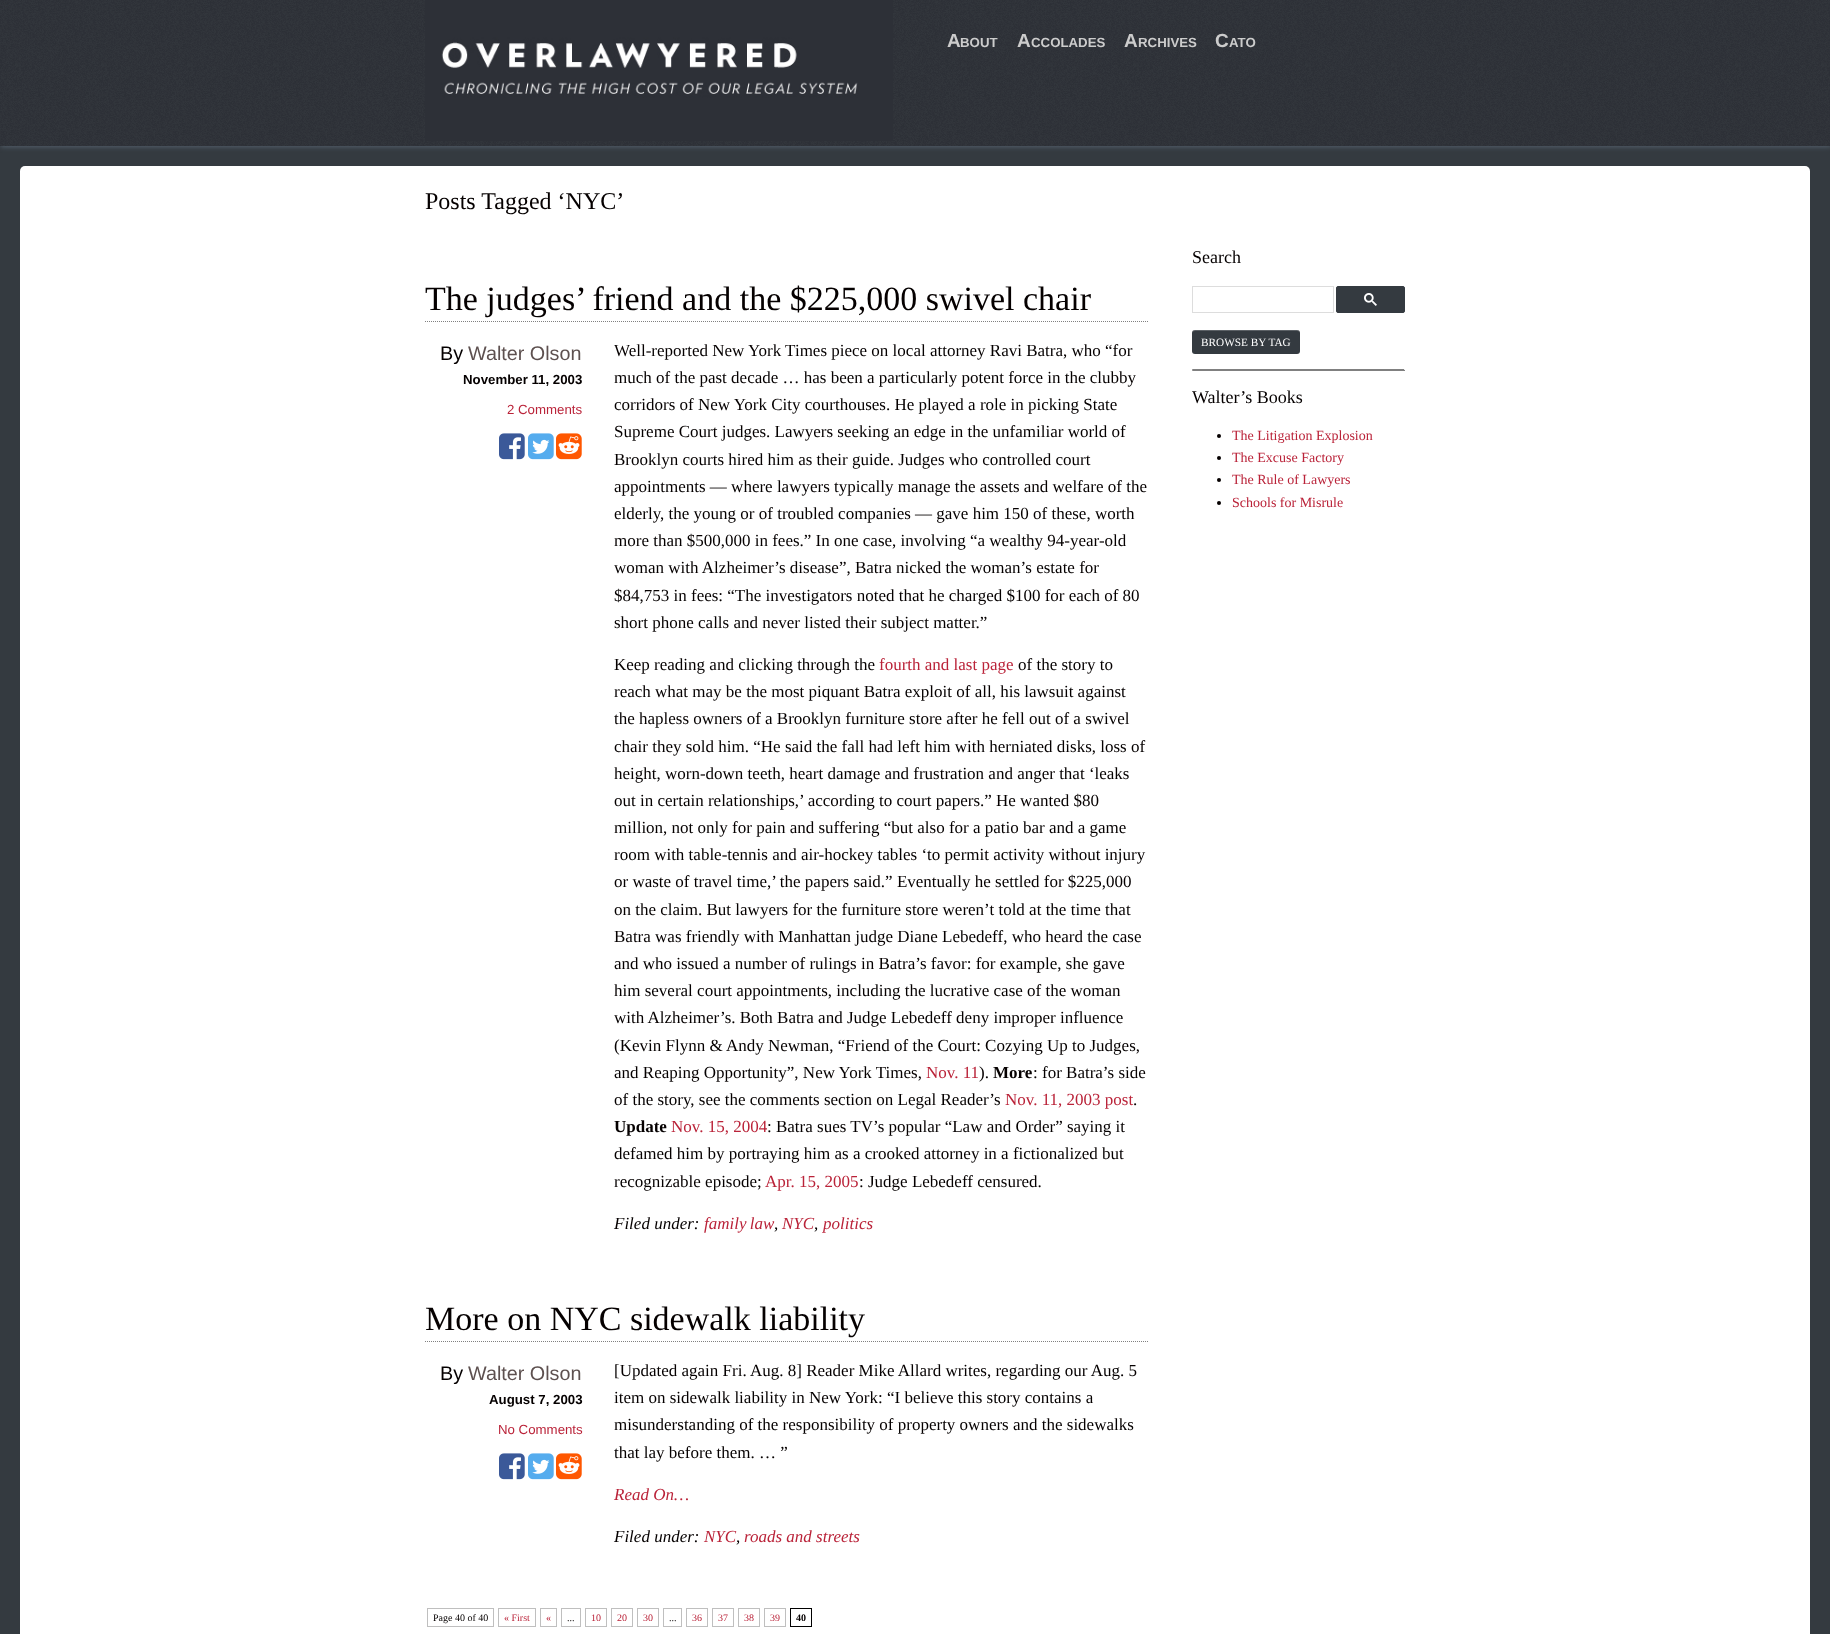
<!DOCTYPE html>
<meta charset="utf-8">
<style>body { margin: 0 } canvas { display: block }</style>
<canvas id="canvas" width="1830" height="1634"></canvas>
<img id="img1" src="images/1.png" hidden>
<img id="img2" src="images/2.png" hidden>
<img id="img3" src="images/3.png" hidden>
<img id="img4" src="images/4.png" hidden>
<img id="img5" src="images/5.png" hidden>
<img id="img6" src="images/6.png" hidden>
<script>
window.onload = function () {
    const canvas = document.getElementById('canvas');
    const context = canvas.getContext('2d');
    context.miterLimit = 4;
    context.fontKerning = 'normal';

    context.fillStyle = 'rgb(52, 58, 64)';
    context.fillRect(0, 0, 1830, 1634);
    context.fillStyle = 'rgb(83, 95, 107)';
    context.filter = 'blur(2.5px)';
    context.beginPath();
    context.rect(1, 1, 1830, 146);
    context.fill();
    context.filter = 'none';
    context.drawImage(document.getElementById('img1'), 0, 0, 1830, 146);
    context.drawImage(document.getElementById('img2'), 425, 0, 468, 141);
    context.fillStyle = 'rgb(255, 255, 255)';
    context.beginPath();
    context.roundRect(20, 166, 1790, 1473, 5);
    context.fill();
    context.beginPath();
    context.moveTo(425, 321.5);
    context.lineTo(1149, 321.5);
    context.strokeStyle = 'rgb(128, 128, 128)';
    context.setLineDash([1, 1]);
    context.stroke();
    context.drawImage(document.getElementById('img3'), 499, 433, 26, 27);
    context.drawImage(document.getElementById('img4'), 528, 433, 26, 27);
    context.drawImage(document.getElementById('img5'), 556, 433, 26, 27);
    context.beginPath();
    context.moveTo(425, 1341.5);
    context.lineTo(1149, 1341.5);
    context.stroke();
    context.drawImage(document.getElementById('img3'), 499, 1453, 26, 27);
    context.drawImage(document.getElementById('img4'), 528, 1453, 26, 27);
    context.drawImage(document.getElementById('img5'), 556, 1453, 26, 27);
    context.strokeStyle = 'rgb(191, 191, 191)';
    context.setLineDash([]);
    context.strokeRect(427.5, 1608.5, 66, 18);
    context.strokeRect(498.5, 1608.5, 37, 18);
    context.strokeRect(540.5, 1608.5, 16, 18);
    context.strokeRect(561.5, 1608.5, 19, 18);
    context.strokeRect(585.5, 1608.5, 21, 18);
    context.strokeRect(611.5, 1608.5, 21, 18);
    context.strokeRect(637.5, 1608.5, 21, 18);
    context.strokeRect(663.5, 1608.5, 18, 18);
    context.strokeRect(686.5, 1608.5, 21, 18);
    context.strokeRect(712.5, 1608.5, 21, 18);
    context.strokeRect(738.5, 1608.5, 21, 18);
    context.strokeRect(764.5, 1608.5, 21, 18);
    context.strokeStyle = 'rgb(0, 0, 0)';
    context.strokeRect(790.5, 1608.5, 21, 18);
    context.strokeStyle = 'rgb(221, 221, 221)';
    context.strokeRect(1192.5, 286.5, 141, 26);
    context.fillStyle = 'rgb(52, 58, 64)';
    context.beginPath();
    context.roundRect(1336.5, 286.5, 68, 26, 1.5);
    context.fill();
    context.strokeStyle = 'rgb(52, 58, 64)';
    context.stroke();
    context.drawImage(document.getElementById('img6'), 1364, 293, 13, 13);
    context.beginPath();
    context.roundRect(1192, 330, 108, 24, 3);
    context.fill();
    context.fillStyle = 'rgba(255, 255, 255, 0.2)';
    context.beginPath();
    context.moveTo(1195, 331);
    context.lineTo(1297, 331);
    context.bezierCurveTo(1299, 331, 1300, 332, 1300, 334);
    context.bezierCurveTo(1300, 325, 1282, 330, 1280, 330);
    context.lineTo(1212, 330);
    context.bezierCurveTo(1210, 330, 1192, 325, 1192, 334);
    context.bezierCurveTo(1192, 332, 1193, 331, 1195, 331);
    context.closePath();
    context.fill();
    context.fillStyle = 'rgb(128, 128, 128)';
    context.fillRect(1192, 369, 213, 1);
    context.fillStyle = 'rgb(238, 238, 238)';
    context.fillRect(1404, 369, 1, 2);
    context.fillStyle = 'rgb(128, 128, 128)';
    context.fillRect(1192, 370, 213, 1);
    context.fillStyle = 'rgb(159, 159, 159)';
    context.fillRect(1192, 369, 1, 2);
    context.fillStyle = 'rgb(5, 0, 0)';
    context.beginPath();
    context.arc(1219, 436, 2, 0, 2 * Math.PI);
    context.fill();
    context.beginPath();
    context.arc(1219, 458, 2, 0, 2 * Math.PI);
    context.fill();
    context.beginPath();
    context.arc(1219, 480, 2, 0, 2 * Math.PI);
    context.fill();
    context.beginPath();
    context.arc(1219, 503, 2, 0, 2 * Math.PI);
    context.fill();
    context.font = 'bold 19px Liberation Sans';
    context.fillStyle = 'rgb(204, 204, 204)';
    context.fillText('A', 947, 47);
    context.font = 'bold 13.25px Liberation Sans';
    context.fillText('BOUT', 960, 47);
    context.font = 'bold 19px Liberation Sans';
    context.fillText('A', 1017, 47);
    context.font = 'bold 13.25px Liberation Sans';
    context.fillText('CCOLADES', 1031, 47);
    context.font = 'bold 19px Liberation Sans';
    context.fillText('A', 1124, 47);
    context.font = 'bold 13.25px Liberation Sans';
    context.fillText('RCHIVES', 1138, 47);
    context.font = 'bold 19px Liberation Sans';
    context.fillText('C', 1215, 47);
    context.font = 'bold 13.25px Liberation Sans';
    context.fillText('ATO', 1229, 47);
    context.font = '24px Liberation Serif';
    context.fillStyle = 'rgb(5, 0, 0)';
    context.fillText('Posts Tagged ‘NYC’', 425, 209);
    context.font = '34px Liberation Serif';
    context.fillText('The judges’ friend and the $225,000 swivel chair', 425, 310);
    context.font = '19.75px Liberation Sans';
    context.fillText('By', 440, 360);
    context.fillStyle = 'rgb(93, 80, 79)';
    context.fillText('Walter Olson', 468, 360);
    context.font = 'bold 13.25px Liberation Sans';
    context.fillStyle = 'rgb(5, 0, 0)';
    context.fillText('November 11, 2003', 463, 384);
    context.font = '13.25px Liberation Sans';
    context.fillStyle = 'rgb(186, 35, 57)';
    context.fillText('2 Comments', 507, 414);
    context.font = '17px Liberation Serif';
    context.fillStyle = 'rgb(5, 0, 0)';
    context.fillText('Well-reported New York Times piece on local attorney Ravi Batra, who “for', 614, 356);
    context.fillText('much of the past decade … has been a particularly potent force in the clubby', 614, 383);
    context.fillText('corridors of New York City courthouses. He played a role in picking State', 614, 410);
    context.fillText('Supreme Court judges. Lawyers seeking an edge in the unfamiliar world of', 614, 437);
    context.fillText('Brooklyn courts hired him as their guide. Judges who controlled court', 614, 465);
    context.fillText('appointments — where lawyers typically manage the assets and welfare of the', 614, 492);
    context.fillText('elderly, the young or of troubled companies — gave him 150 of these, worth', 614, 519);
    context.fillText('more than $500,000 in fees.” In one case, involving “a wealthy 94-year-old', 614, 546);
    context.fillText('woman with Alzheimer’s disease”, Batra nicked the woman’s estate for', 614, 573);
    context.fillText('$84,753 in fees: “The investigators noted that he charged $100 for each of 80', 614, 601);
    context.fillText('short phone calls and never listed their subject matter.”', 614, 628);
    context.fillText('Keep reading and clicking through the', 614, 670);
    context.fillStyle = 'rgb(186, 35, 57)';
    context.fillText('fourth and last page', 879, 670);
    context.fillStyle = 'rgb(5, 0, 0)';
    context.fillText('of the story to', 1018, 670);
    context.fillText('reach what may be the most piquant Batra exploit of all, his lawsuit against', 614, 697);
    context.fillText('the hapless owners of a Brooklyn furniture store after he fell out of a swivel', 614, 724);
    context.fillText('chair they sold him. “He said the fall had left him with herniated disks, loss of', 614, 752);
    context.fillText('height, worn-down teeth, heart damage and frustration and anger that ‘leaks', 614, 779);
    context.fillText('out in certain relationships,’ according to court papers.” He wanted $80', 614, 806);
    context.fillText('million, not only for pain and suffering “but also for a patio bar and a game', 614, 833);
    context.fillText('room with table-tennis and air-hockey tables ‘to permit activity without injury', 614, 860);
    context.fillText('or waste of travel time,’ the papers said.” Eventually he settled for $225,000', 614, 887);
    context.fillText('on the claim. But lawyers for the furniture store weren’t told at the time that', 614, 915);
    context.fillText('Batra was friendly with Manhattan judge Diane Lebedeff, who heard the case', 614, 942);
    context.fillText('and who issued a number of rulings in Batra’s favor: for example, she gave', 614, 969);
    context.fillText('him several court appointments, including the lucrative case of the woman', 614, 996);
    context.fillText('with Alzheimer’s. Both Batra and Judge Lebedeff deny improper influence', 614, 1023);
    context.fillText('(Kevin Flynn & Andy Newman, “Friend of the Court: Cozying Up to Judges,', 614, 1051);
    context.fillText('and Reaping Opportunity”, New York Times,', 614, 1078);
    context.fillStyle = 'rgb(186, 35, 57)';
    context.fillText('Nov. 11', 926, 1078);
    context.fillStyle = 'rgb(5, 0, 0)';
    context.fillText(').', 979, 1078);
    context.font = 'bold 17px Liberation Serif';
    context.fillText('More', 993, 1078);
    context.font = '17px Liberation Serif';
    context.fillText(': for Batra’s side', 1033, 1078);
    context.fillText('of the story, see the comments section on Legal Reader’s', 614, 1105);
    context.fillStyle = 'rgb(186, 35, 57)';
    context.fillText('Nov. 11, 2003 post', 1005, 1105);
    context.fillStyle = 'rgb(5, 0, 0)';
    context.fillText('.', 1133, 1105);
    context.font = 'bold 17px Liberation Serif';
    context.fillText('Update', 614, 1132);
    context.font = '17px Liberation Serif';
    context.fillStyle = 'rgb(186, 35, 57)';
    context.fillText('Nov. 15, 2004', 671, 1132);
    context.fillStyle = 'rgb(5, 0, 0)';
    context.fillText(': Batra sues TV’s popular “Law and Order” saying it', 767, 1132);
    context.fillText('defamed him by portraying him as a crooked attorney in a fictionalized but', 614, 1159);
    context.fillText('recognizable episode;', 614, 1187);
    context.fillStyle = 'rgb(186, 35, 57)';
    context.fillText('Apr. 15, 2005', 765, 1187);
    context.fillStyle = 'rgb(5, 0, 0)';
    context.fillText(': Judge Lebedeff censured.', 859, 1187);
    context.font = 'italic 17px Liberation Serif';
    context.fillText('Filed under:', 614, 1229);
    context.wordSpacing = '-1px';
    context.fillStyle = 'rgb(186, 35, 57)';
    context.fillText('family law', 704, 1229);
    context.wordSpacing = '0px';
    context.fillStyle = 'rgb(5, 0, 0)';
    context.fillText(',', 774, 1229);
    context.fillStyle = 'rgb(186, 35, 57)';
    context.fillText('NYC', 782, 1229);
    context.fillStyle = 'rgb(5, 0, 0)';
    context.fillText(',', 814, 1229);
    context.fillStyle = 'rgb(186, 35, 57)';
    context.fillText('politics', 823, 1229);
    context.font = '34px Liberation Serif';
    context.fillStyle = 'rgb(5, 0, 0)';
    context.fillText('More on NYC sidewalk liability', 425, 1330);
    context.font = '19.75px Liberation Sans';
    context.fillText('By', 440, 1380);
    context.fillStyle = 'rgb(93, 80, 79)';
    context.fillText('Walter Olson', 468, 1380);
    context.font = 'bold 13.25px Liberation Sans';
    context.fillStyle = 'rgb(5, 0, 0)';
    context.fillText('August 7, 2003', 489, 1404);
    context.font = '13.25px Liberation Sans';
    context.fillStyle = 'rgb(186, 35, 57)';
    context.fillText('No Comments', 498, 1434);
    context.font = '17px Liberation Serif';
    context.fillStyle = 'rgb(5, 0, 0)';
    context.fillText('[Updated again Fri. Aug. 8] Reader Mike Allard writes, regarding our Aug. 5', 614, 1376);
    context.fillText('item on sidewalk liability in New York: “I believe this story contains a', 614, 1403);
    context.fillText('misunderstanding of the responsibility of property owners and the sidewalks', 614, 1430);
    context.fillText('that lay before them. … ”', 614, 1458);
    context.font = 'italic 17px Liberation Serif';
    context.fillStyle = 'rgb(186, 35, 57)';
    context.fillText('Read On…', 614, 1500);
    context.fillStyle = 'rgb(5, 0, 0)';
    context.fillText('Filed under:', 614, 1542);
    context.fillStyle = 'rgb(186, 35, 57)';
    context.fillText('NYC', 704, 1542);
    context.fillStyle = 'rgb(5, 0, 0)';
    context.fillText(',', 736, 1542);
    context.fillStyle = 'rgb(186, 35, 57)';
    context.fillText('roads and streets', 744, 1542);
    context.font = '10px Liberation Serif';
    context.fillStyle = 'rgb(5, 0, 0)';
    context.fillText('Page 40 of 40', 433, 1621);
    context.fillStyle = 'rgb(186, 35, 57)';
    context.fillText('« First', 504, 1621);
    context.fillText('«', 546, 1621);
    context.fillStyle = 'rgb(5, 0, 0)';
    context.fillText('...', 567, 1621);
    context.fillStyle = 'rgb(186, 35, 57)';
    context.fillText('10', 591, 1621);
    context.fillText('20', 617, 1621);
    context.fillText('30', 643, 1621);
    context.fillStyle = 'rgb(5, 0, 0)';
    context.fillText('...', 669, 1621);
    context.fillStyle = 'rgb(186, 35, 57)';
    context.fillText('36', 692, 1621);
    context.fillText('37', 718, 1621);
    context.fillText('38', 744, 1621);
    context.fillText('39', 770, 1621);
    context.font = 'bold 10px Liberation Serif';
    context.fillStyle = 'rgb(5, 0, 0)';
    context.fillText('40', 796, 1621);
    context.font = '18px Liberation Serif';
    context.fillText('Search', 1192, 263);
    context.font = '11.25px Liberation Serif';
    context.fillStyle = 'rgb(255, 255, 255)';
    context.fillText('BROWSE BY TAG', 1201, 346);
    context.font = '18px Liberation Serif';
    context.fillStyle = 'rgb(5, 0, 0)';
    context.fillText('Walter’s Books', 1192, 403);
    context.font = '14px Liberation Serif';
    context.fillStyle = 'rgb(186, 35, 57)';
    context.fillText('The Litigation Explosion', 1232, 440);
    context.fillText('The Excuse Factory', 1232, 462);
    context.fillText('The Rule of Lawyers', 1232, 484);
    context.fillText('Schools for Misrule', 1232, 507);
};
</script>
